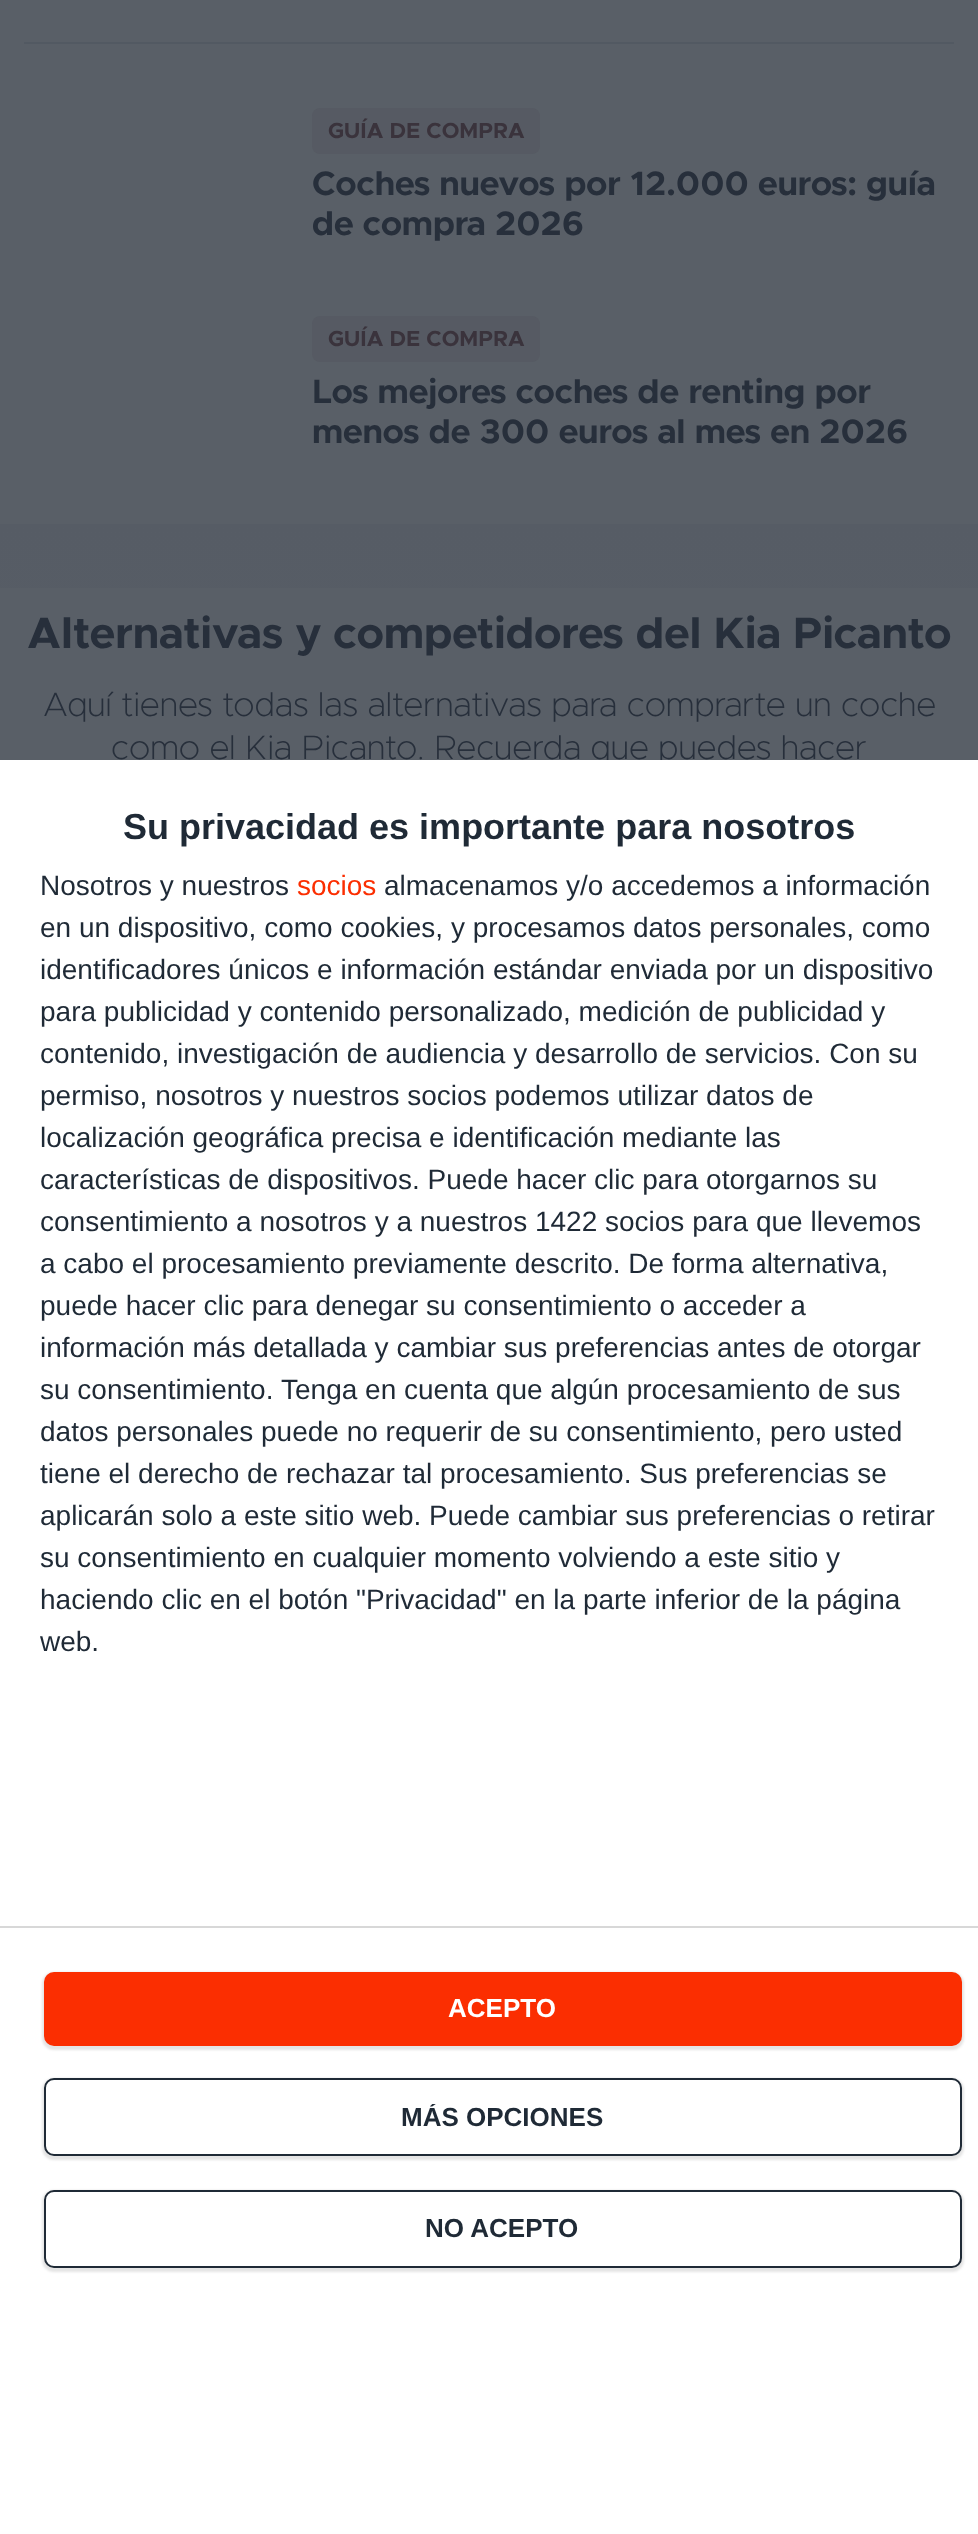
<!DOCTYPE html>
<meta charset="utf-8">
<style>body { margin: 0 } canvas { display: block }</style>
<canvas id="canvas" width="978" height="2534"></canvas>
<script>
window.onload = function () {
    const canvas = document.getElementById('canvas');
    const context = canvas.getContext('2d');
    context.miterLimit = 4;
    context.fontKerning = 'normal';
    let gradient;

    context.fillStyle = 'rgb(89, 95, 103)';
    context.fillRect(0, 0, 978, 2534);
    context.fillStyle = 'rgb(82, 89, 98)';
    context.fillRect(24, 42, 930, 2);
    context.fillStyle = 'rgb(86, 90, 99)';
    context.beginPath();
    context.roundRect(312, 108, 228, 46, 8);
    context.fill();
    context.beginPath();
    context.roundRect(312, 316, 228, 46, 8);
    context.fill();
    gradient = context.createLinearGradient(489, 524, 489, 1950);
    gradient.addColorStop(0, 'rgb(86, 92, 101)');
    gradient.addColorStop(0.27, 'rgb(89, 95, 103)');
    context.fillStyle = gradient;
    context.fillRect(0, 524, 978, 64);
    context.font = 'bold 22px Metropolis';
    context.fillStyle = 'rgb(58, 51, 60)';
    context.fillText('GUÍA DE COMPRA', 328, 138);
    context.font = 'bold 34px Metropolis';
    context.fillStyle = 'rgb(39, 47, 59)';
    context.fillText('Coches nuevos por 12.000 euros: guía', 312, 195);
    context.fillText('de compra 2026', 312, 235);
    context.font = 'bold 22px Metropolis';
    context.fillStyle = 'rgb(58, 51, 60)';
    context.fillText('GUÍA DE COMPRA', 328, 346);
    context.font = 'bold 34px Metropolis';
    context.fillStyle = 'rgb(39, 47, 59)';
    context.fillText('Los mejores coches de renting por', 312, 403);
    context.fillText('menos de 300 euros al mes en 2026', 312, 443);
    context.font = 'bold 44px Metropolis';
    context.fillText('Alternativas y competidores del Kia Picanto', 27, 648);
    context.font = '200 34px Metropolis';
    context.fillText('Aquí tienes todas las alternativas para comprarte un coche', 42, 716);
    context.fillText('como el Kia Picanto. Recuerda que puedes hacer', 111, 759);
    context.fillStyle = 'rgb(255, 255, 255)';
    context.fillRect(0, 760, 978, 1774);
    context.font = 'bold 36px Liberation Sans';
    context.fillStyle = 'rgb(31, 42, 54)';
    context.fillText('Su privacidad es importante para nosotros', 123, 839);
    context.font = '28px Liberation Sans';
    context.fillText('Nosotros y nuestros', 40, 895);
    context.fillStyle = 'rgb(251, 46, 1)';
    context.fillText('socios', 297, 895);
    context.fillStyle = 'rgb(31, 42, 54)';
    context.fillText('almacenamos y/o accedemos a información', 384, 895);
    context.fillText('en un dispositivo, como cookies, y procesamos datos personales, como', 40, 937);
    context.fillText('identificadores únicos e información estándar enviada por un dispositivo', 40, 979);
    context.fillText('para publicidad y contenido personalizado, medición de publicidad y', 40, 1021);
    context.fillText('contenido, investigación de audiencia y desarrollo de servicios. Con su', 40, 1063);
    context.fillText('permiso, nosotros y nuestros socios podemos utilizar datos de', 40, 1105);
    context.fillText('localización geográfica precisa e identificación mediante las', 40, 1147);
    context.fillText('características de dispositivos. Puede hacer clic para otorgarnos su', 40, 1189);
    context.fillText('consentimiento a nosotros y a nuestros 1422 socios para que llevemos', 40, 1231);
    context.fillText('a cabo el procesamiento previamente descrito. De forma alternativa,', 40, 1273);
    context.fillText('puede hacer clic para denegar su consentimiento o acceder a', 40, 1315);
    context.fillText('información más detallada y cambiar sus preferencias antes de otorgar', 40, 1357);
    context.fillText('su consentimiento.', 40, 1399);
    context.fillText('Tenga en cuenta que algún procesamiento de sus', 281, 1399);
    context.fillText('datos personales puede no requerir de su consentimiento, pero usted', 40, 1441);
    context.fillText('tiene el derecho de rechazar tal procesamiento. Sus preferencias se', 40, 1483);
    context.fillText('aplicarán solo a este sitio web. Puede cambiar sus preferencias o retirar', 40, 1525);
    context.fillText('su consentimiento en cualquier momento volviendo a este sitio y', 40, 1567);
    context.fillText('haciendo clic en el botón "Privacidad" en la parte inferior de la página', 40, 1609);
    context.fillText('web.', 40, 1651);
    context.fillStyle = 'rgb(216, 216, 216)';
    context.fillRect(0, 1926, 978, 2);
    context.fillStyle = 'rgba(0, 0, 0, 0.1)';
    context.filter = 'blur(1px)';
    context.beginPath();
    context.roundRect(42, 1972, 922, 78, 12);
    context.fill();
    context.filter = 'none';
    context.fillStyle = 'rgb(251, 46, 1)';
    context.beginPath();
    context.roundRect(44, 1972, 918, 74, 10);
    context.fill();
    context.font = 'bold 26px Liberation Sans';
    context.fillStyle = 'rgb(255, 255, 255)';
    context.fillText('ACEPTO', 448, 2017);
    context.fillStyle = 'rgba(0, 0, 0, 0.1)';
    context.filter = 'blur(1px)';
    context.beginPath();
    context.roundRect(42, 2078, 922, 82, 12);
    context.fill();
    context.filter = 'none';
    context.fillStyle = 'rgb(255, 255, 255)';
    context.beginPath();
    context.roundRect(45, 2079, 916, 76, 9);
    context.fill();
    context.strokeStyle = 'rgb(31, 42, 54)';
    context.lineWidth = 2;
    context.stroke();
    context.save();
    context.beginPath();
    context.rect(400, 2104, 204, 26);
    context.clip();
    context.fillStyle = 'rgb(31, 42, 54)';
    context.fillText('MÁS OPCIONES', 401, 2126);
    context.restore();
    context.fillStyle = 'rgba(0, 0, 0, 0.1)';
    context.filter = 'blur(1px)';
    context.beginPath();
    context.roundRect(42, 2190, 922, 82, 12);
    context.fill();
    context.filter = 'none';
    context.fillStyle = 'rgb(255, 255, 255)';
    context.beginPath();
    context.roundRect(45, 2191, 916, 76, 9);
    context.fill();
    context.stroke();
    context.fillStyle = 'rgb(31, 42, 54)';
    context.fillText('NO ACEPTO', 425, 2237);
};
</script>
